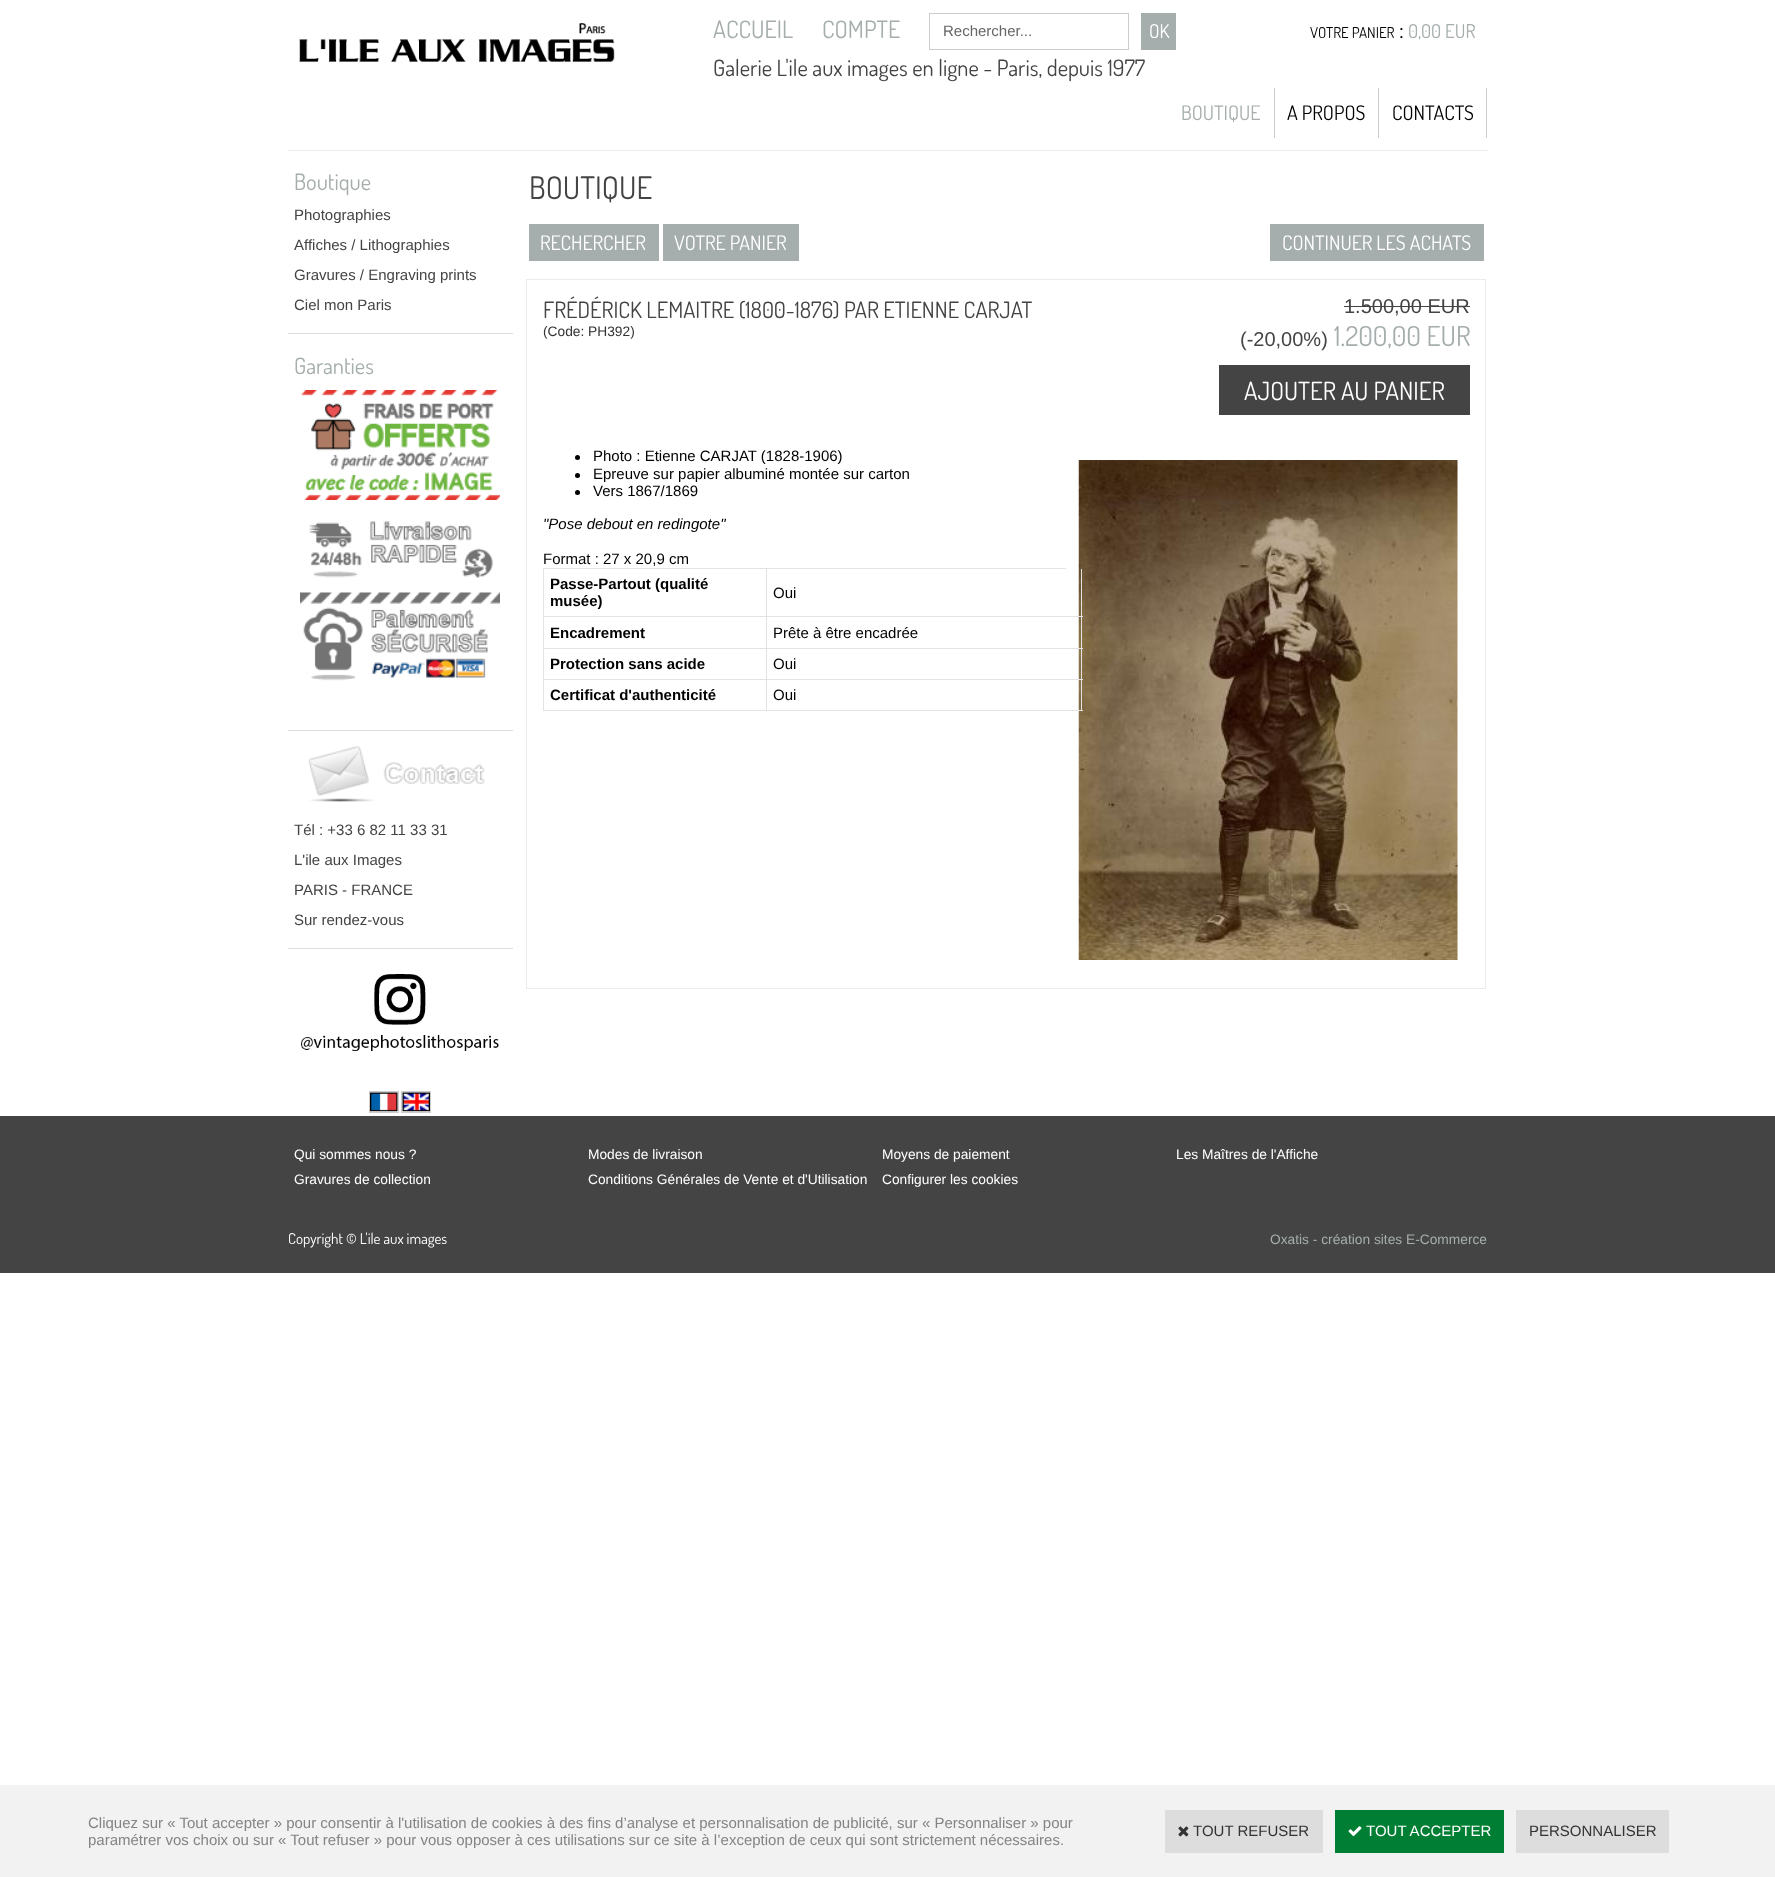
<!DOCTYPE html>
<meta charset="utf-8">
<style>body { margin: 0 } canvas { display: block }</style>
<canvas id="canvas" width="1775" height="1877"></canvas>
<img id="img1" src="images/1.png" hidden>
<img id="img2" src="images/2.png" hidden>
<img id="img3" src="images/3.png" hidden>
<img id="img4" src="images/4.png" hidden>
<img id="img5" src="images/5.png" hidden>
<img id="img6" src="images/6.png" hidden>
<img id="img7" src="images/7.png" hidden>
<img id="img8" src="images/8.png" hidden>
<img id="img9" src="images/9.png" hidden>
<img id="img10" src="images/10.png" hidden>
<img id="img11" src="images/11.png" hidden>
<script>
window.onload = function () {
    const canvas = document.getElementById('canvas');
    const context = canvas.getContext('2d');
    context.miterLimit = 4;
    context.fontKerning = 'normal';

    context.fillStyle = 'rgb(255, 255, 255)';
    context.fillRect(0, 0, 1775, 1877);
    context.fillStyle = 'rgb(235, 235, 235)';
    context.fillRect(288, 150, 1200, 1);
    context.drawImage(document.getElementById('img1'), 299, 23, 316, 39);
    context.strokeStyle = 'rgb(204, 204, 204)';
    context.strokeRect(929.5, 13.5, 199, 36);
    context.fillStyle = 'rgb(165, 173, 173)';
    context.fillRect(1141, 13, 35, 37);
    context.fillStyle = 'rgb(204, 204, 204)';
    context.fillRect(1274, 88, 1, 50);
    context.fillRect(1378, 88, 1, 50);
    context.fillRect(1486, 88, 1, 50);
    context.fillStyle = 'rgb(221, 221, 221)';
    context.fillRect(288, 333, 225, 1);
    context.drawImage(document.getElementById('img2'), 301, 390, 199, 110);
    context.drawImage(document.getElementById('img3'), 308, 521, 185, 57);
    context.drawImage(document.getElementById('img4'), 300, 592, 200, 89);
    context.fillRect(288, 730, 225, 1);
    context.drawImage(document.getElementById('img5'), 308, 746, 177, 56);
    context.fillRect(288, 948, 225, 1);
    context.drawImage(document.getElementById('img6'), 301, 974, 198, 77);
    context.drawImage(document.getElementById('img7'), 370, 1092, 28, 20);
    context.strokeRect(369.5, 1091.5, 29, 21);
    context.drawImage(document.getElementById('img8'), 402, 1092, 28, 20);
    context.strokeRect(401.5, 1091.5, 29, 21);
    context.fillStyle = 'rgb(165, 173, 173)';
    context.fillRect(529, 224, 130, 37);
    context.fillRect(663, 224, 136, 37);
    context.fillRect(1270, 224, 214, 37);
    context.strokeStyle = 'rgb(235, 235, 235)';
    context.strokeRect(526.5, 279.5, 959, 709);
    context.fillStyle = 'rgb(68, 68, 68)';
    context.fillRect(1344, 306, 126, 1);
    context.fillRect(1219, 365, 251, 50);
    context.fillStyle = 'rgb(0, 0, 0)';
    context.beginPath();
    context.arc(577.5, 457.5, 2.5, 0, 2 * Math.PI);
    context.fill();
    context.beginPath();
    context.arc(577.5, 475.5, 2.5, 0, 2 * Math.PI);
    context.fill();
    context.beginPath();
    context.arc(577.5, 492.5, 2.5, 0, 2 * Math.PI);
    context.fill();
    context.drawImage(document.getElementById('img9'), 1078, 460, 380, 500);
    context.fillStyle = 'rgb(227, 227, 227)';
    context.fillRect(543, 568, 523, 1);
    context.fillRect(543, 616, 223, 1);
    context.fillRect(543, 569, 1, 49);
    context.fillRect(1081, 569, 1, 142);
    context.fillRect(766, 616, 317, 1);
    context.fillRect(766, 569, 1, 49);
    context.fillRect(543, 648, 540, 1);
    context.fillRect(543, 618, 1, 31);
    context.fillRect(766, 618, 1, 31);
    context.fillRect(543, 679, 540, 1);
    context.fillRect(543, 649, 1, 31);
    context.fillRect(766, 649, 1, 31);
    context.fillRect(543, 710, 540, 1);
    context.fillRect(543, 680, 1, 31);
    context.fillRect(766, 680, 1, 31);
    context.fillStyle = 'rgb(68, 68, 68)';
    context.fillRect(0, 1116, 1775, 157);
    context.fillStyle = 'rgb(242, 242, 242)';
    context.fillRect(0, 1785, 1775, 92);
    context.fillStyle = 'rgb(221, 221, 221)';
    context.fillRect(1165, 1810, 158, 43);
    context.drawImage(document.getElementById('img10'), 1178, 1826, 11, 11);
    context.fillStyle = 'rgb(0, 126, 51)';
    context.fillRect(1335, 1810, 169, 43);
    context.drawImage(document.getElementById('img11'), 1348, 1826, 14, 11);
    context.fillStyle = 'rgb(221, 221, 221)';
    context.fillRect(1516, 1810, 153, 43);
    context.font = '24px Dosis';
    context.fillStyle = 'rgb(165, 173, 173)';
    context.fillText('ACCUEIL', 713, 38);
    context.fillText('COMPTE', 822, 38);
    context.font = '15px Liberation Sans';
    context.fillStyle = 'rgb(102, 102, 102)';
    context.fillText('Rechercher...', 943, 36);
    context.font = '19px Dosis';
    context.fillStyle = 'rgb(255, 255, 255)';
    context.fillText('OK', 1149, 38);
    context.font = '15px Dosis';
    context.fillStyle = 'rgb(0, 0, 0)';
    context.fillText('VOTRE PANIER', 1310, 38);
    context.font = '24px Dosis';
    context.fillText(':', 1399, 38);
    context.font = '19px Dosis';
    context.fillStyle = 'rgb(165, 173, 173)';
    context.fillText('0,00 EUR', 1408, 38);
    context.font = '22.5px Dosis';
    context.fillStyle = 'rgb(68, 68, 68)';
    context.fillText('Galerie L\'ile aux images en ligne - Paris, depuis 1977', 713, 76);
    context.font = '20px Dosis';
    context.fillStyle = 'rgb(165, 173, 173)';
    context.fillText('BOUTIQUE', 1181, 120);
    context.fillStyle = 'rgb(0, 0, 0)';
    context.fillText('A PROPOS', 1287, 120);
    context.fillText('CONTACTS', 1392, 120);
    context.font = '22.5px Dosis';
    context.fillStyle = 'rgb(165, 173, 173)';
    context.fillText('Boutique', 294, 190);
    context.font = '15px Liberation Sans';
    context.fillStyle = 'rgb(68, 68, 68)';
    context.fillText('Photographies', 294, 220);
    context.fillText('Affiches / Lithographies', 294, 250);
    context.fillText('Gravures / Engraving prints', 294, 280);
    context.fillText('Ciel mon Paris', 294, 310);
    context.font = '22.5px Dosis';
    context.fillStyle = 'rgb(165, 173, 173)';
    context.fillText('Garanties', 294, 374);
    context.font = '15px Liberation Sans';
    context.fillStyle = 'rgb(68, 68, 68)';
    context.fillText('Tél : +33 6 82 11 33 31', 294, 835);
    context.fillText('L\'ile aux Images', 294, 865);
    context.fillText('PARIS - FRANCE', 294, 895);
    context.fillText('Sur rendez-vous', 294, 925);
    context.font = '31px Dosis';
    context.fillText('BOUTIQUE', 529, 199);
    context.font = '20px Dosis';
    context.fillStyle = 'rgb(255, 255, 255)';
    context.fillText('RECHERCHER', 540, 250);
    context.fillText('VOTRE PANIER', 674, 250);
    context.fillText('CONTINUER LES ACHATS', 1282, 250);
    context.font = '22.5px Dosis';
    context.fillStyle = 'rgb(68, 68, 68)';
    context.fillText('FRÉDÉRICK LEMAITRE (1800-1876) PAR ETIENNE CARJAT', 543, 318);
    context.font = '13.75px Liberation Sans';
    context.fillStyle = 'rgb(51, 51, 51)';
    context.fillText('(Code: PH392)', 543, 336);
    context.font = '20px Liberation Sans';
    context.fillStyle = 'rgb(68, 68, 68)';
    context.fillText('1.500,00 EUR', 1344, 313);
    context.fillText('(-20,00%)', 1240, 346);
    context.font = '27.5px Dosis';
    context.fillStyle = 'rgb(165, 173, 173)';
    context.fillText('1.200,00 EUR', 1334, 346);
    context.font = '25px Dosis';
    context.fillStyle = 'rgb(255, 255, 255)';
    context.fillText('AJOUTER AU PANIER', 1244, 400);
    context.font = '15px Liberation Sans';
    context.fillStyle = 'rgb(0, 0, 0)';
    context.fillText('Photo : Etienne CARJAT (1828-1906)', 593, 461);
    context.fillText('Epreuve sur papier albuminé montée sur carton', 593, 479);
    context.fillText('Vers 1867/1869', 593, 496);
    context.font = 'italic 15px Liberation Sans';
    context.fillText('"Pose debout en redingote"', 543, 529);
    context.font = '15px Liberation Sans';
    context.fillText('Format : 27 x 20,9 cm', 543, 564);
    context.font = 'bold 15px Liberation Sans';
    context.fillText('Passe-Partout (qualité', 550, 589);
    context.fillText('musée)', 550, 606);
    context.font = '15px Liberation Sans';
    context.fillText('Oui', 773, 598);
    context.font = 'bold 15px Liberation Sans';
    context.fillText('Encadrement', 550, 638);
    context.font = '15px Liberation Sans';
    context.fillText('Prête à être encadrée', 773, 638);
    context.font = 'bold 15px Liberation Sans';
    context.fillText('Protection sans acide', 550, 669);
    context.font = '15px Liberation Sans';
    context.fillText('Oui', 773, 669);
    context.font = 'bold 15px Liberation Sans';
    context.fillText('Certificat d\'authenticité', 550, 700);
    context.font = '15px Liberation Sans';
    context.fillText('Oui', 773, 700);
    context.font = '13.75px Liberation Sans';
    context.fillStyle = 'rgb(255, 255, 255)';
    context.fillText('Qui sommes nous ?', 294, 1159);
    context.fillText('Modes de livraison', 588, 1159);
    context.fillText('Moyens de paiement', 882, 1159);
    context.fillText('Les Maîtres de l\'Affiche', 1176, 1159);
    context.fillText('Gravures de collection', 294, 1184);
    context.fillText('Conditions Générales de Vente et d\'Utilisation', 588, 1184);
    context.fillText('Configurer les cookies', 882, 1184);
    context.font = '15px Dosis';
    context.fillText('Copyright © L\'ile aux images', 288, 1244);
    context.font = '13.75px Liberation Sans';
    context.fillStyle = 'rgb(165, 173, 173)';
    context.fillText('Oxatis - création sites E-Commerce', 1270, 1244);
    context.font = '15px Liberation Sans';
    context.fillStyle = 'rgb(132, 132, 132)';
    context.fillText('Cliquez sur « Tout accepter » pour consentir à l\'utilisation de cookies à des fins d’analyse et personnalisation de publicité, sur « Personnaliser » pour', 88, 1828);
    context.fillText('paramétrer vos choix ou sur « Tout refuser » pour vous opposer à ces utilisations sur ce site à l’exception de ceux qui sont strictement nécessaires.', 88, 1845);
    context.fillStyle = 'rgb(51, 51, 51)';
    context.fillText('TOUT REFUSER', 1193, 1836);
    context.fillStyle = 'rgb(255, 255, 255)';
    context.fillText('TOUT ACCEPTER', 1366, 1836);
    context.fillStyle = 'rgb(51, 51, 51)';
    context.fillText('PERSONNALISER', 1529, 1836);
};
</script>
